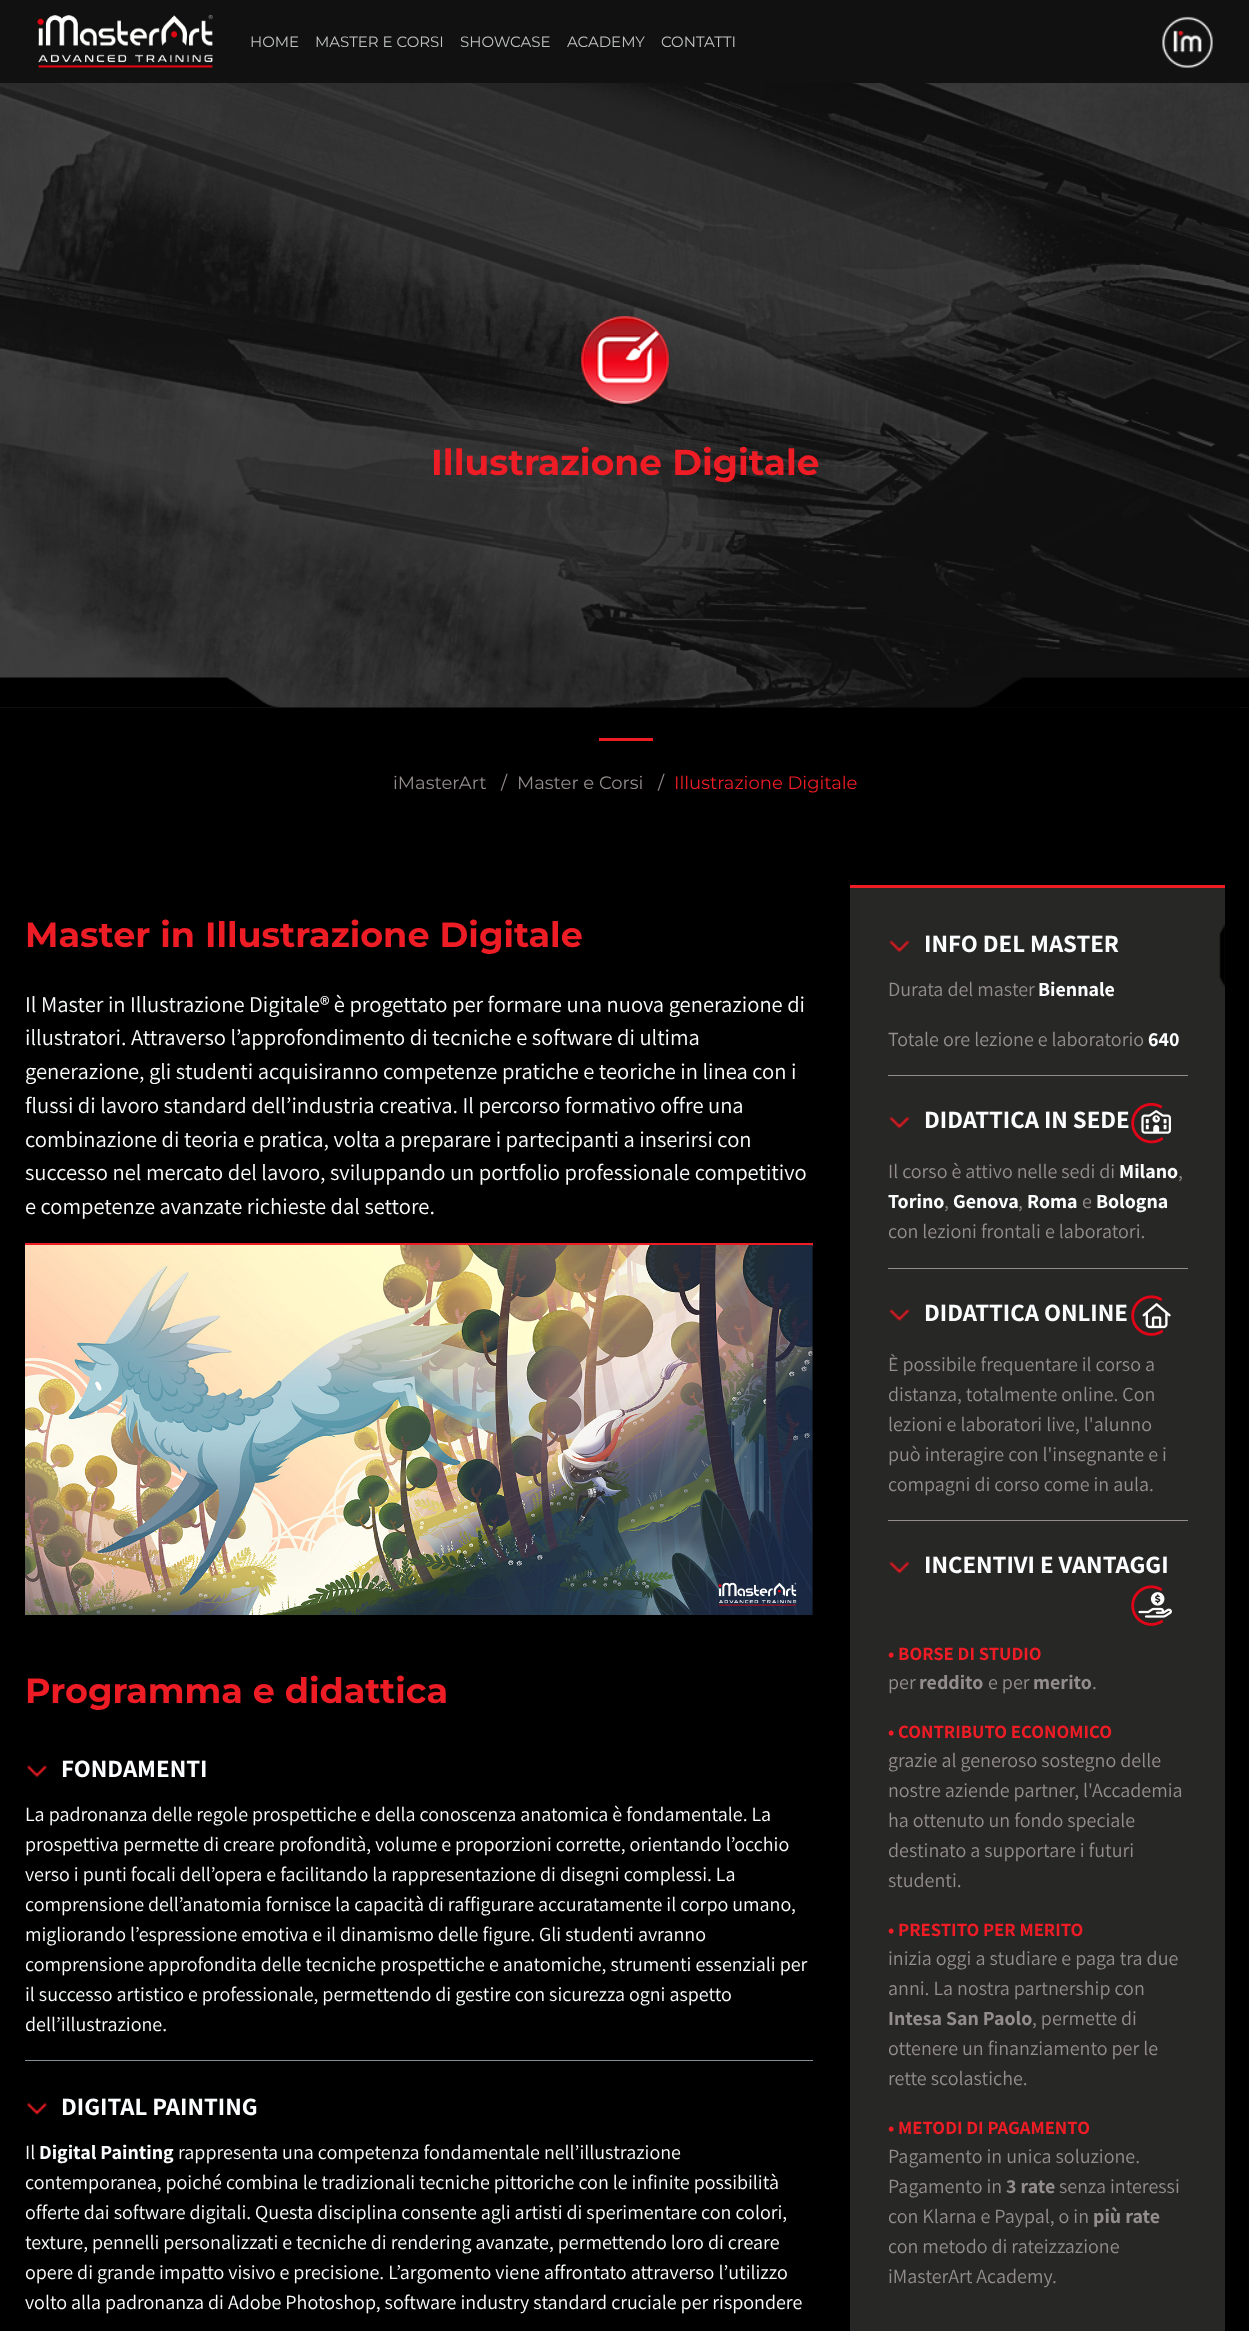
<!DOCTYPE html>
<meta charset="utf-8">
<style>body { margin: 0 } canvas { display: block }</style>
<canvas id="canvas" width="1249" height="2331"></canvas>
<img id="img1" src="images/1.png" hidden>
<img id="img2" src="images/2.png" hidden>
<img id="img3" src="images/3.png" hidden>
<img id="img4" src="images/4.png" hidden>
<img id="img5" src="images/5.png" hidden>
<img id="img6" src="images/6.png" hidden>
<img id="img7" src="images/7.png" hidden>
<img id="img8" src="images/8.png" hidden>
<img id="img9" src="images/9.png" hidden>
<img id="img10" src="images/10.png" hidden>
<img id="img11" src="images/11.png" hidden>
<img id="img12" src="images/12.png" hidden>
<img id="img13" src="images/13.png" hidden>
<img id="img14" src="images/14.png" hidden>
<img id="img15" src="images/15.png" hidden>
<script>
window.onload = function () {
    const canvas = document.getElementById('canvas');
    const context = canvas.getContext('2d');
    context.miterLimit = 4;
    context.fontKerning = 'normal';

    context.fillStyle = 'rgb(0, 0, 0)';
    context.fillRect(0, 0, 1249, 2331);
    context.fillStyle = 'rgb(17, 17, 17)';
    context.fillRect(0, 0, 1249, 83);
    context.drawImage(document.getElementById('img1'), 37, 15, 176, 53);
    context.drawImage(document.getElementById('img2'), 1162, 16, 51, 52);
    context.drawImage(document.getElementById('img3'), 0, 83, 1249, 625);
    context.drawImage(document.getElementById('img4'), 581, 316, 88, 88);
    context.drawImage(document.getElementById('img5'), 0, 677, 1249, 31);
    context.fillStyle = 'rgb(238, 28, 37)';
    context.fillRect(599, 738, 54, 3);
    context.fillRect(25, 1243, 788, 3);
    context.drawImage(document.getElementById('img6'), 25, 1245, 788, 370);
    context.drawImage(document.getElementById('img7'), 27, 1765, 20, 12);
    context.fillStyle = 'rgb(134, 142, 150)';
    context.fillRect(25, 2060, 788, 1);
    context.drawImage(document.getElementById('img8'), 27, 2102, 20, 13);
    context.fillStyle = 'rgb(39, 39, 38)';
    context.fillRect(850, 888, 375, 1443);
    context.fillStyle = 'rgb(238, 28, 37)';
    context.fillRect(850, 885, 375, 3);
    context.drawImage(document.getElementById('img9'), 889, 940, 21, 12);
    context.drawImage(document.getElementById('img10'), 1219, 925, 6, 62);
    context.fillStyle = 'rgb(147, 141, 140)';
    context.fillRect(888, 1075, 300, 1);
    context.drawImage(document.getElementById('img11'), 889, 1116, 21, 13);
    context.drawImage(document.getElementById('img12'), 1131, 1102, 40, 42);
    context.fillRect(888, 1268, 300, 1);
    context.drawImage(document.getElementById('img13'), 889, 1309, 21, 12);
    context.drawImage(document.getElementById('img14'), 1131, 1295, 40, 41);
    context.fillRect(888, 1520, 300, 1);
    context.drawImage(document.getElementById('img11'), 889, 1561, 21, 13);
    context.drawImage(document.getElementById('img15'), 1131, 1585, 41, 41);
    context.font = '15px Montserrat';
    context.fillStyle = 'rgb(191, 193, 194)';
    context.fillText('HOME', 250, 47);
    context.fillText('MASTER E CORSI', 315, 47);
    context.fillText('SHOWCASE', 460, 47);
    context.fillText('ACADEMY', 567, 47);
    context.fillText('CONTATTI', 661, 47);
    context.font = 'bold 36px Montserrat';
    context.fillStyle = 'rgb(238, 28, 37)';
    context.fillText('Illustrazione Digitale', 431, 475);
    context.font = '18px Montserrat';
    context.fillStyle = 'rgb(147, 141, 140)';
    context.fillText('iMasterArt', 393, 789);
    context.fillText('/', 501, 789);
    context.fillText('Master e Corsi', 517, 789);
    context.fillText('/', 658, 789);
    context.fillStyle = 'rgb(238, 28, 37)';
    context.fillText('Illustrazione Digitale', 674, 789);
    context.font = 'bold 35px Montserrat';
    context.fillText('Master in Illustrazione Digitale', 25, 947);
    context.font = '22.5px Assistant';
    context.fillStyle = 'rgb(251, 253, 254)';
    context.fillText('Il Master in Illustrazione Digitale® è progettato per formare una nuova generazione di', 25, 1012);
    context.fillText('illustratori. Attraverso l’approfondimento di tecniche e software di ultima', 25, 1045);
    context.fillText('generazione, gli studenti acquisiranno competenze pratiche e teoriche in linea con i', 25, 1079);
    context.fillText('flussi di lavoro standard dell’industria creativa. Il percorso formativo offre una', 25, 1113);
    context.fillText('combinazione di teoria e pratica, volta a preparare i partecipanti a inserirsi con', 25, 1147);
    context.fillText('successo nel mercato del lavoro, sviluppando un portfolio professionale competitivo', 25, 1180);
    context.fillText('e competenze avanzate richieste dal settore.', 25, 1214);
    context.font = 'bold 35px Montserrat';
    context.fillStyle = 'rgb(238, 28, 37)';
    context.fillText('Programma e didattica', 25, 1703);
    context.font = 'bold 25px Assistant';
    context.fillStyle = 'rgb(251, 253, 254)';
    context.fillText('FONDAMENTI', 61, 1777);
    context.font = '20px Assistant';
    context.fillText('La padronanza delle regole prospettiche e della conoscenza anatomica è fondamentale. La', 25, 1821);
    context.fillText('prospettiva permette di creare profondità, volume e proporzioni corrette, orientando l’occhio', 25, 1851);
    context.fillText('verso i punti focali dell’opera e facilitando la rappresentazione di disegni complessi. La', 25, 1881);
    context.fillText('comprensione dell’anatomia fornisce la capacità di raffigurare accuratamente il corpo umano,', 25, 1911);
    context.fillText('migliorando l’espressione emotiva e il dinamismo delle figure. Gli studenti avranno', 25, 1941);
    context.fillText('comprensione approfondita delle tecniche prospettiche e anatomiche, strumenti essenziali per', 25, 1971);
    context.fillText('il successo artistico e professionale, permettendo di gestire con sicurezza ogni aspetto', 25, 2001);
    context.fillText('dell’illustrazione.', 25, 2031);
    context.font = 'bold 25px Assistant';
    context.fillText('DIGITAL PAINTING', 61, 2115);
    context.font = '20px Assistant';
    context.fillText('Il', 25, 2159);
    context.font = 'bold 20px Assistant';
    context.fillText('Digital Painting', 39, 2159);
    context.font = '20px Assistant';
    context.fillText('rappresenta una competenza fondamentale nell’illustrazione', 178, 2159);
    context.fillText('contemporanea, poiché combina le tradizionali tecniche pittoriche con le infinite possibilità', 25, 2189);
    context.fillText('offerte dai software digitali. Questa disciplina consente agli artisti di sperimentare con colori,', 25, 2219);
    context.fillText('texture, pennelli personalizzati e tecniche di rendering avanzate, permettendo loro di creare', 25, 2249);
    context.fillText('opere di grande impatto visivo e precisione. L’argomento viene affrontato attraverso l’utilizzo', 25, 2279);
    context.fillText('volto alla padronanza di Adobe Photoshop, software industry standard cruciale per rispondere', 25, 2309);
    context.font = 'bold 25px Assistant';
    context.fillText('INFO DEL MASTER', 924, 952);
    context.font = '20px Assistant';
    context.fillStyle = 'rgb(147, 141, 140)';
    context.fillText('Durata del master', 888, 996);
    context.font = 'bold 20px Assistant';
    context.fillStyle = 'rgb(251, 253, 254)';
    context.fillText('Biennale', 1038, 996);
    context.font = '20px Assistant';
    context.fillStyle = 'rgb(147, 141, 140)';
    context.fillText('Totale ore lezione e laboratorio', 888, 1046);
    context.font = 'bold 20px Assistant';
    context.fillStyle = 'rgb(251, 253, 254)';
    context.fillText('640', 1148, 1046);
    context.font = 'bold 25px Assistant';
    context.fillText('DIDATTICA IN SEDE', 924, 1128);
    context.font = '20px Assistant';
    context.fillStyle = 'rgb(147, 141, 140)';
    context.fillText('Il corso è attivo nelle sedi di', 888, 1178);
    context.font = 'bold 20px Assistant';
    context.fillStyle = 'rgb(251, 253, 254)';
    context.fillText('Milano', 1119, 1178);
    context.font = '20px Assistant';
    context.fillStyle = 'rgb(147, 141, 140)';
    context.fillText(',', 1178, 1178);
    context.font = 'bold 20px Assistant';
    context.fillStyle = 'rgb(251, 253, 254)';
    context.fillText('Torino', 888, 1208);
    context.font = '20px Assistant';
    context.fillStyle = 'rgb(147, 141, 140)';
    context.fillText(',', 944, 1208);
    context.font = 'bold 20px Assistant';
    context.fillStyle = 'rgb(251, 253, 254)';
    context.fillText('Genova', 953, 1208);
    context.font = '20px Assistant';
    context.fillStyle = 'rgb(147, 141, 140)';
    context.fillText(',', 1018, 1208);
    context.font = 'bold 20px Assistant';
    context.fillStyle = 'rgb(251, 253, 254)';
    context.fillText('Roma', 1027, 1208);
    context.font = '20px Assistant';
    context.fillStyle = 'rgb(147, 141, 140)';
    context.fillText('e', 1082, 1208);
    context.font = 'bold 20px Assistant';
    context.fillStyle = 'rgb(251, 253, 254)';
    context.fillText('Bologna', 1096, 1208);
    context.font = '20px Assistant';
    context.fillStyle = 'rgb(147, 141, 140)';
    context.fillText('con lezioni frontali e laboratori.', 888, 1238);
    context.font = 'bold 25px Assistant';
    context.fillStyle = 'rgb(251, 253, 254)';
    context.fillText('DIDATTICA ONLINE', 924, 1321);
    context.font = '20px Assistant';
    context.fillStyle = 'rgb(147, 141, 140)';
    context.fillText('È possibile frequentare il corso a', 888, 1371);
    context.fillText('distanza, totalmente online. Con', 888, 1401);
    context.fillText('lezioni e laboratori live, l\'alunno', 888, 1431);
    context.fillText('può interagire con l\'insegnante e i', 888, 1461);
    context.fillText('compagni di corso come in aula.', 888, 1491);
    context.font = 'bold 25px Assistant';
    context.fillStyle = 'rgb(251, 253, 254)';
    context.fillText('INCENTIVI E VANTAGGI', 924, 1573);
    context.font = 'bold 18.75px Assistant';
    context.fillStyle = 'rgb(238, 28, 37)';
    context.fillText('• BORSE DI STUDIO', 888, 1660);
    context.font = '20px Assistant';
    context.fillStyle = 'rgb(147, 141, 140)';
    context.fillText('per', 888, 1689);
    context.font = 'bold 20px Assistant';
    context.fillText('reddito', 919, 1689);
    context.font = '20px Assistant';
    context.fillText('e per', 988, 1689);
    context.font = 'bold 20px Assistant';
    context.fillText('merito', 1033, 1689);
    context.font = '20px Assistant';
    context.fillText('.', 1092, 1689);
    context.font = 'bold 18.75px Assistant';
    context.fillStyle = 'rgb(238, 28, 37)';
    context.fillText('• CONTRIBUTO ECONOMICO', 888, 1738);
    context.font = '20px Assistant';
    context.fillStyle = 'rgb(147, 141, 140)';
    context.fillText('grazie al generoso sostegno delle', 888, 1767);
    context.fillText('nostre aziende partner, l\'Accademia', 888, 1797);
    context.fillText('ha ottenuto un fondo speciale', 888, 1827);
    context.fillText('destinato a supportare i futuri', 888, 1857);
    context.fillText('studenti.', 888, 1887);
    context.font = 'bold 18.75px Assistant';
    context.fillStyle = 'rgb(238, 28, 37)';
    context.fillText('• PRESTITO PER MERITO', 888, 1936);
    context.font = '20px Assistant';
    context.fillStyle = 'rgb(147, 141, 140)';
    context.fillText('inizia oggi a studiare e paga tra due', 888, 1965);
    context.fillText('anni. La nostra partnership con', 888, 1995);
    context.font = 'bold 20px Assistant';
    context.fillText('Intesa San Paolo', 888, 2025);
    context.font = '20px Assistant';
    context.fillText(', permette di', 1032, 2025);
    context.fillText('ottenere un finanziamento per le', 888, 2055);
    context.fillText('rette scolastiche.', 888, 2085);
    context.font = 'bold 18.75px Assistant';
    context.fillStyle = 'rgb(238, 28, 37)';
    context.fillText('• METODI DI PAGAMENTO', 888, 2134);
    context.font = '20px Assistant';
    context.fillStyle = 'rgb(147, 141, 140)';
    context.fillText('Pagamento in unica soluzione.', 888, 2163);
    context.fillText('Pagamento in', 888, 2193);
    context.font = 'bold 20px Assistant';
    context.fillText('3 rate', 1006, 2193);
    context.font = '20px Assistant';
    context.fillText('senza interessi', 1059, 2193);
    context.fillText('con Klarna e Paypal, o in', 888, 2223);
    context.font = 'bold 20px Assistant';
    context.fillText('più rate', 1093, 2223);
    context.font = '20px Assistant';
    context.fillText('con metodo di rateizzazione', 888, 2253);
    context.fillText('iMasterArt Academy.', 888, 2283);
};
</script>
